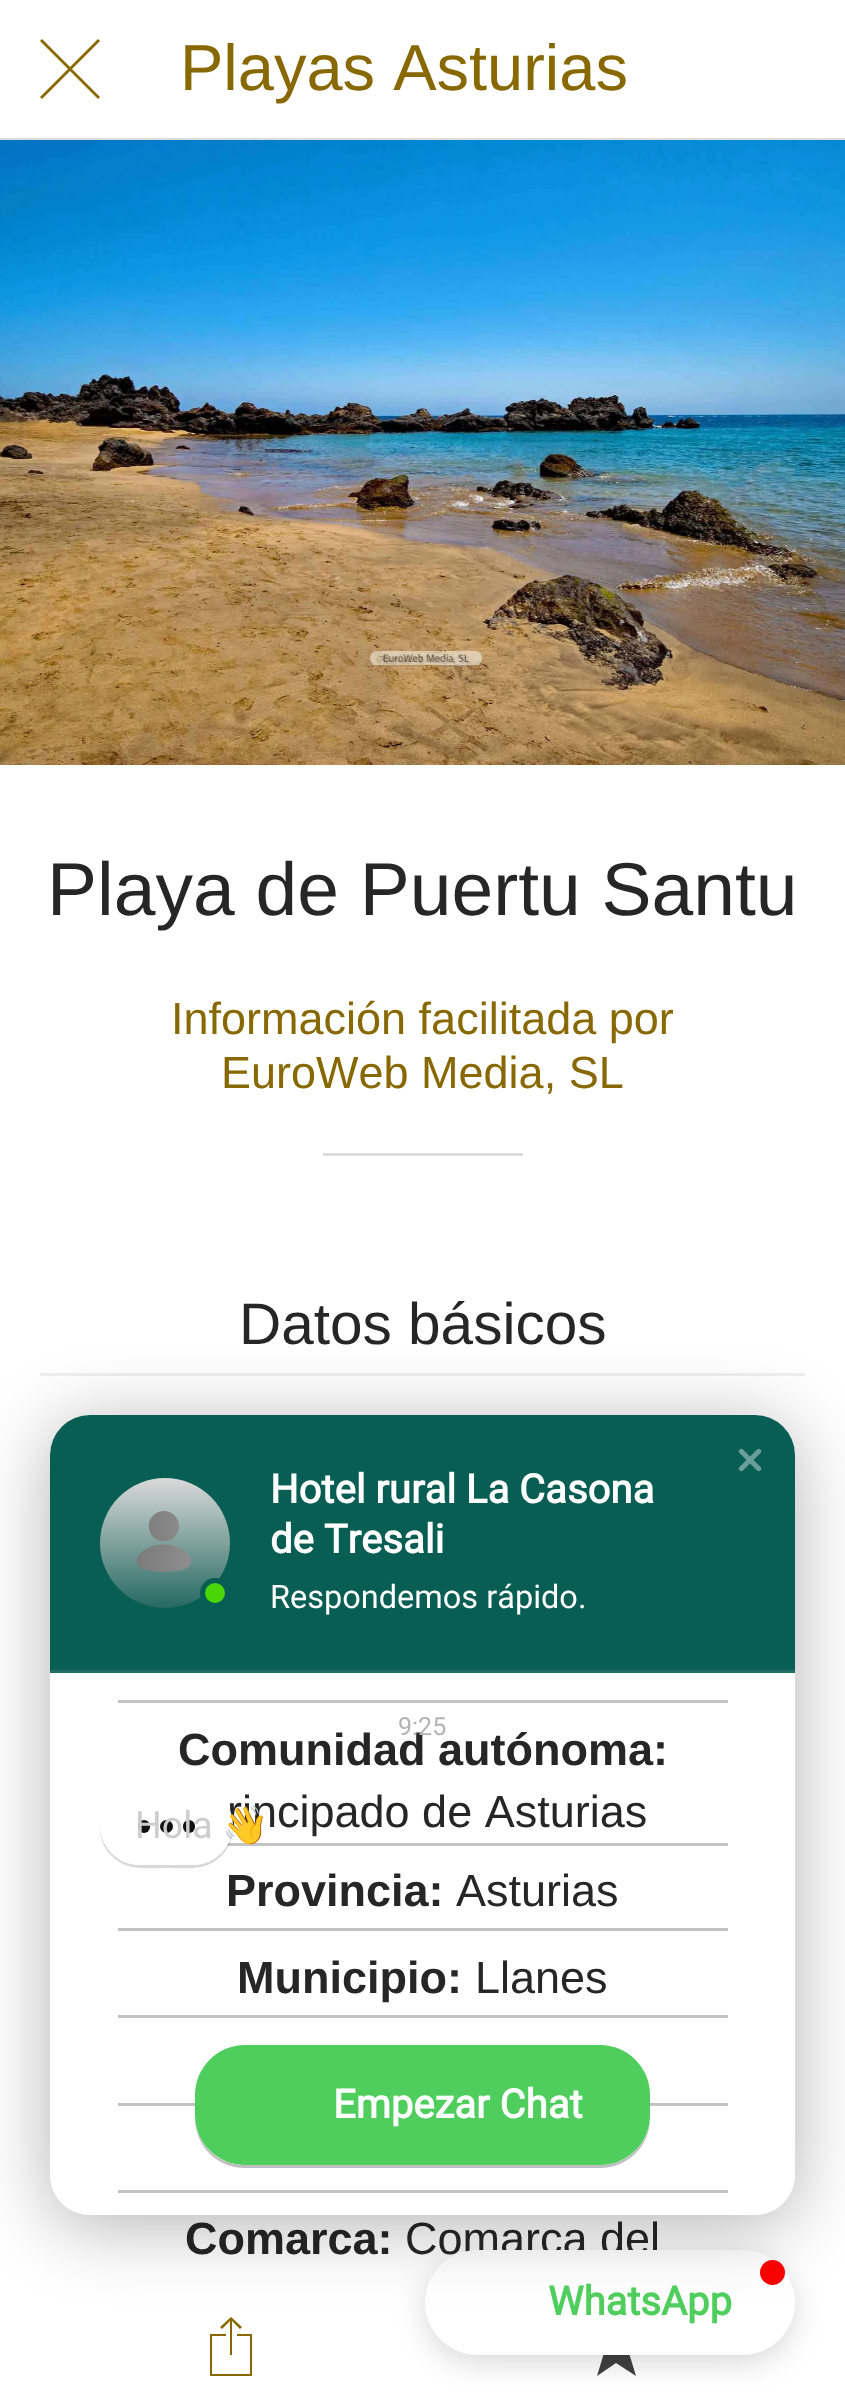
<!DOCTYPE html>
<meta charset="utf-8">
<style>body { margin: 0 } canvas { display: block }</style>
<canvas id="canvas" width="845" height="2403"></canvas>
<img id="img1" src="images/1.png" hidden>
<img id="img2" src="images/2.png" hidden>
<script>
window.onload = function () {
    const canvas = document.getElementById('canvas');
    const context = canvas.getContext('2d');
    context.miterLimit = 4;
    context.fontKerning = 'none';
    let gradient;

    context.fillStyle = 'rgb(255, 255, 255)';
    context.fillRect(0, 0, 845, 2403);
    context.fillStyle = 'rgb(221, 221, 221)';
    context.fillRect(0, 138, 845, 2);
    context.fillStyle = 'rgb(136, 104, 0)';
    context.beginPath();
    context.moveTo(100, 41);
    context.lineTo(98, 39);
    context.lineTo(70, 67);
    context.lineTo(42, 39);
    context.lineTo(40, 41);
    context.lineTo(68, 69);
    context.lineTo(40, 97);
    context.lineTo(42, 99);
    context.lineTo(70, 71);
    context.lineTo(98, 99);
    context.lineTo(100, 97);
    context.lineTo(72, 69);
    context.closePath();
    context.fill();
    context.drawImage(document.getElementById('img1'), 0, 140, 845, 625);
    context.fillStyle = 'rgb(221, 221, 221)';
    context.fillRect(323, 1153, 200, 3);
    context.fillStyle = 'rgb(239, 239, 239)';
    context.fillRect(40, 1373, 765, 3);
    context.fillStyle = 'rgb(195, 195, 195)';
    context.fillRect(118, 1700, 610, 3);
    context.fillRect(227, 1843, 501, 3);
    context.fillRect(118, 1928, 610, 3);
    context.fillRect(118, 2015, 610, 3);
    context.fillRect(118, 2103, 610, 3);
    context.fillRect(118, 2190, 610, 3);
    context.fillStyle = 'rgb(136, 104, 0)';
    context.beginPath();
    context.moveTo(237, 2334);
    context.lineTo(237, 2336);
    context.lineTo(250, 2336);
    context.lineTo(250, 2374);
    context.lineTo(212, 2374);
    context.lineTo(212, 2336);
    context.lineTo(226, 2336);
    context.lineTo(226, 2334);
    context.lineTo(210, 2334);
    context.lineTo(210, 2376);
    context.lineTo(252, 2376);
    context.lineTo(252, 2334);
    context.closePath();
    context.moveTo(230, 2321);
    context.lineTo(230, 2355);
    context.lineTo(232, 2355);
    context.lineTo(232, 2321);
    context.lineTo(240, 2329);
    context.lineTo(242, 2327);
    context.lineTo(231, 2317);
    context.lineTo(220, 2327);
    context.lineTo(222, 2329);
    context.closePath();
    context.fill();
    context.fillStyle = 'rgb(66, 65, 66)';
    context.beginPath();
    context.moveTo(648, 2339);
    context.lineTo(624, 2339);
    context.lineTo(616, 2316);
    context.lineTo(609, 2339);
    context.lineTo(585, 2339);
    context.lineTo(604, 2353);
    context.lineTo(597, 2376);
    context.lineTo(616, 2363);
    context.lineTo(636, 2376);
    context.lineTo(629, 2353);
    context.closePath();
    context.fill();
    context.fillStyle = 'rgba(0, 0, 0, 0.15)';
    context.filter = 'blur(15px)';
    context.beginPath();
    context.roundRect(425, 2258, 370, 105, 52.5);
    context.fill();
    context.filter = 'none';
    context.font = '65px Liberation Sans';
    context.fillStyle = 'rgb(136, 104, 0)';
    context.fillText('Playas Asturias', 180, 90);
    context.font = '75px Liberation Sans';
    context.fillStyle = 'rgb(38, 38, 38)';
    context.fillText('Playa de Puertu Santu', 47, 915);
    context.font = '45px Liberation Sans';
    context.fillStyle = 'rgb(136, 104, 0)';
    context.fillText('Información facilitada por', 171, 1034);
    context.fillText('EuroWeb Media, SL', 221, 1088);
    context.font = '58.5px Liberation Sans';
    context.fillStyle = 'rgb(38, 38, 38)';
    context.fillText('Datos básicos', 239, 1344);
    context.font = 'bold 45px Liberation Sans';
    context.fillText('Comunidad autónoma:', 178, 1765);
    context.font = '45px Liberation Sans';
    context.fillText('rincipado de Asturias', 227, 1827);
    context.font = 'bold 45px Liberation Sans';
    context.fillText('Provincia:', 226, 1906);
    context.font = '45px Liberation Sans';
    context.fillText('Asturias', 456, 1906);
    context.font = 'bold 45px Liberation Sans';
    context.fillText('Municipio:', 237, 1993);
    context.font = '45px Liberation Sans';
    context.fillText('Llanes', 475, 1993);
    context.font = 'bold 45px Liberation Sans';
    context.fillText('Comarca:', 185, 2254);
    context.font = '45px Liberation Sans';
    context.fillText('Comarca del', 405, 2254);
    context.fillStyle = 'rgb(255, 255, 255)';
    context.beginPath();
    context.roundRect(425, 2250, 370, 105, 52.5);
    context.fill();
    context.fillStyle = 'rgb(255, 0, 0)';
    context.beginPath();
    context.arc(772.5, 2272.5, 12.5, 0, 2 * Math.PI);
    context.fill();
    context.save();
    context.beginPath();
    context.moveTo(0, 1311);
    context.lineTo(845, 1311);
    context.lineTo(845, 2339);
    context.lineTo(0, 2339);
    context.closePath();
    context.moveTo(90, 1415);
    context.lineTo(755, 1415);
    context.bezierCurveTo(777, 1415, 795, 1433, 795, 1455);
    context.lineTo(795, 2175);
    context.bezierCurveTo(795, 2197, 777, 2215, 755, 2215);
    context.lineTo(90, 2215);
    context.bezierCurveTo(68, 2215, 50, 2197, 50, 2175);
    context.lineTo(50, 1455);
    context.bezierCurveTo(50, 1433, 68, 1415, 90, 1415);
    context.closePath();
    context.clip('evenodd');
    context.fillStyle = 'rgba(0, 0, 0, 0.3)';
    context.filter = 'blur(37.5px)';
    context.beginPath();
    context.roundRect(50, 1425, 745, 800, 40);
    context.fill();
    context.filter = 'none';
    context.restore();
    context.fillStyle = 'rgb(9, 94, 84)';
    context.beginPath();
    context.roundRect(50, 1415, 745, 258, [40, 40, 0, 0]);
    context.fill();
    gradient = context.createLinearGradient(165, 1478, 165, 1608);
    gradient.addColorStop(0, 'rgb(229, 229, 229)');
    gradient.addColorStop(1, 'rgb(38, 110, 102)');
    context.fillStyle = gradient;
    context.beginPath();
    context.arc(165, 1543, 65, 0, 2 * Math.PI);
    context.fill();
    context.drawImage(document.getElementById('img2'), 136, 1511, 56, 61);
    context.fillStyle = 'rgba(17, 17, 17, 0.05)';
    context.beginPath();
    context.moveTo(165, 1478);
    context.bezierCurveTo(201, 1478, 230, 1507, 230, 1543);
    context.bezierCurveTo(230, 1579, 201, 1608, 165, 1608);
    context.bezierCurveTo(129, 1608, 100, 1579, 100, 1543);
    context.bezierCurveTo(100, 1507, 129, 1478, 165, 1478);
    context.closePath();
    context.fill();
    context.fillStyle = 'rgb(74, 213, 4)';
    context.beginPath();
    context.arc(215, 1593, 12.5, 0, 2 * Math.PI);
    context.fill();
    context.strokeStyle = 'rgb(9, 94, 84)';
    context.lineWidth = 5;
    context.stroke();
    context.fillStyle = 'rgba(0, 0, 0, 0.15)';
    context.beginPath();
    context.moveTo(100, 1826);
    context.bezierCurveTo(99, 1846, 113, 1863, 132, 1867);
    context.bezierCurveTo(142, 1869, 156, 1868, 166, 1868);
    context.bezierCurveTo(177, 1868, 191, 1869, 201, 1867);
    context.bezierCurveTo(222, 1863, 237, 1841, 232, 1820);
    context.lineTo(232, 1825);
    context.bezierCurveTo(232, 1847, 215, 1865, 192, 1865);
    context.lineTo(140, 1865);
    context.bezierCurveTo(118, 1865, 101, 1848, 100, 1826);
    context.closePath();
    context.fill();
    context.fillStyle = 'rgb(255, 255, 255)';
    context.beginPath();
    context.roundRect(100, 1785, 133, 80, 40);
    context.fill();
    context.font = '37.5px Noto Color Emoji';
    context.fillStyle = 'rgb(219, 219, 219)';
    context.fillText('👋', 222, 1838);
    context.fillStyle = 'rgb(17, 17, 17)';
    context.beginPath();
    context.roundRect(183, 1820, 12, 13, 6);
    context.fill();
    context.beginPath();
    context.arc(166.5, 1826.5, 6.5, 0, 2 * Math.PI);
    context.fill();
    context.beginPath();
    context.roundRect(138, 1820, 12, 13, 6);
    context.fill();
    context.font = '37.5px Roboto';
    context.fillStyle = 'rgb(205, 205, 205)';
    context.fillText('Hola', 135, 1838);
    context.font = '25px Roboto';
    context.fillStyle = 'rgb(179, 179, 179)';
    context.fillText('9:25', 398, 1735);
    context.fillStyle = 'rgba(0, 0, 0, 0.25)';
    context.beginPath();
    context.moveTo(195, 2115);
    context.lineTo(195, 2118);
    context.bezierCurveTo(195, 2146, 217, 2168, 245, 2168);
    context.lineTo(600, 2168);
    context.bezierCurveTo(628, 2168, 650, 2146, 650, 2118);
    context.lineTo(650, 2115);
    context.bezierCurveTo(650, 2143, 628, 2165, 600, 2165);
    context.lineTo(245, 2165);
    context.bezierCurveTo(217, 2165, 195, 2143, 195, 2115);
    context.closePath();
    context.fill();
    context.fillStyle = 'rgb(79, 206, 93)';
    context.beginPath();
    context.roundRect(195, 2045, 455, 120, 50);
    context.fill();
    context.font = 'bold 40px Roboto';
    context.fillStyle = 'rgb(255, 255, 255)';
    context.fillText('Empezar Chat', 333, 2118);
    context.fillStyle = 'rgb(107, 158, 152)';
    context.beginPath();
    context.moveTo(743, 1449.5);
    context.lineTo(760.5, 1467);
    context.bezierCurveTo(761.5, 1468, 761.5, 1469.5, 760.5, 1470.5);
    context.bezierCurveTo(759.5, 1471.5, 758, 1471.5, 757, 1470.5);
    context.lineTo(739.5, 1453);
    context.bezierCurveTo(738.5, 1452, 738.5, 1450.5, 739.5, 1449.5);
    context.bezierCurveTo(740.5, 1448.5, 742, 1448.5, 743, 1449.5);
    context.closePath();
    context.fill();
    context.beginPath();
    context.moveTo(739.5, 1467);
    context.lineTo(757, 1449.5);
    context.bezierCurveTo(758, 1448.5, 759.5, 1448.5, 760.5, 1449.5);
    context.bezierCurveTo(761.5, 1450.5, 761.5, 1452, 760.5, 1453);
    context.lineTo(743, 1470.5);
    context.bezierCurveTo(742, 1471.5, 740.5, 1471.5, 739.5, 1470.5);
    context.bezierCurveTo(738.5, 1469.5, 738.5, 1468, 739.5, 1467);
    context.closePath();
    context.fill();
    context.fillStyle = 'rgb(255, 255, 255)';
    context.fillText('de Tresali', 270, 1553);
    context.fillText('Hotel rural La Casona', 270, 1503);
    context.font = '32.5px Roboto';
    context.fillText('Respondemos rápido.', 270, 1608);
    context.fillStyle = 'rgb(34, 110, 101)';
    context.fillRect(50, 1670, 745, 3);
    context.font = 'bold 40px Roboto';
    context.fillStyle = 'rgb(79, 206, 93)';
    context.fillText('WhatsApp', 548, 2315);
};
</script>
